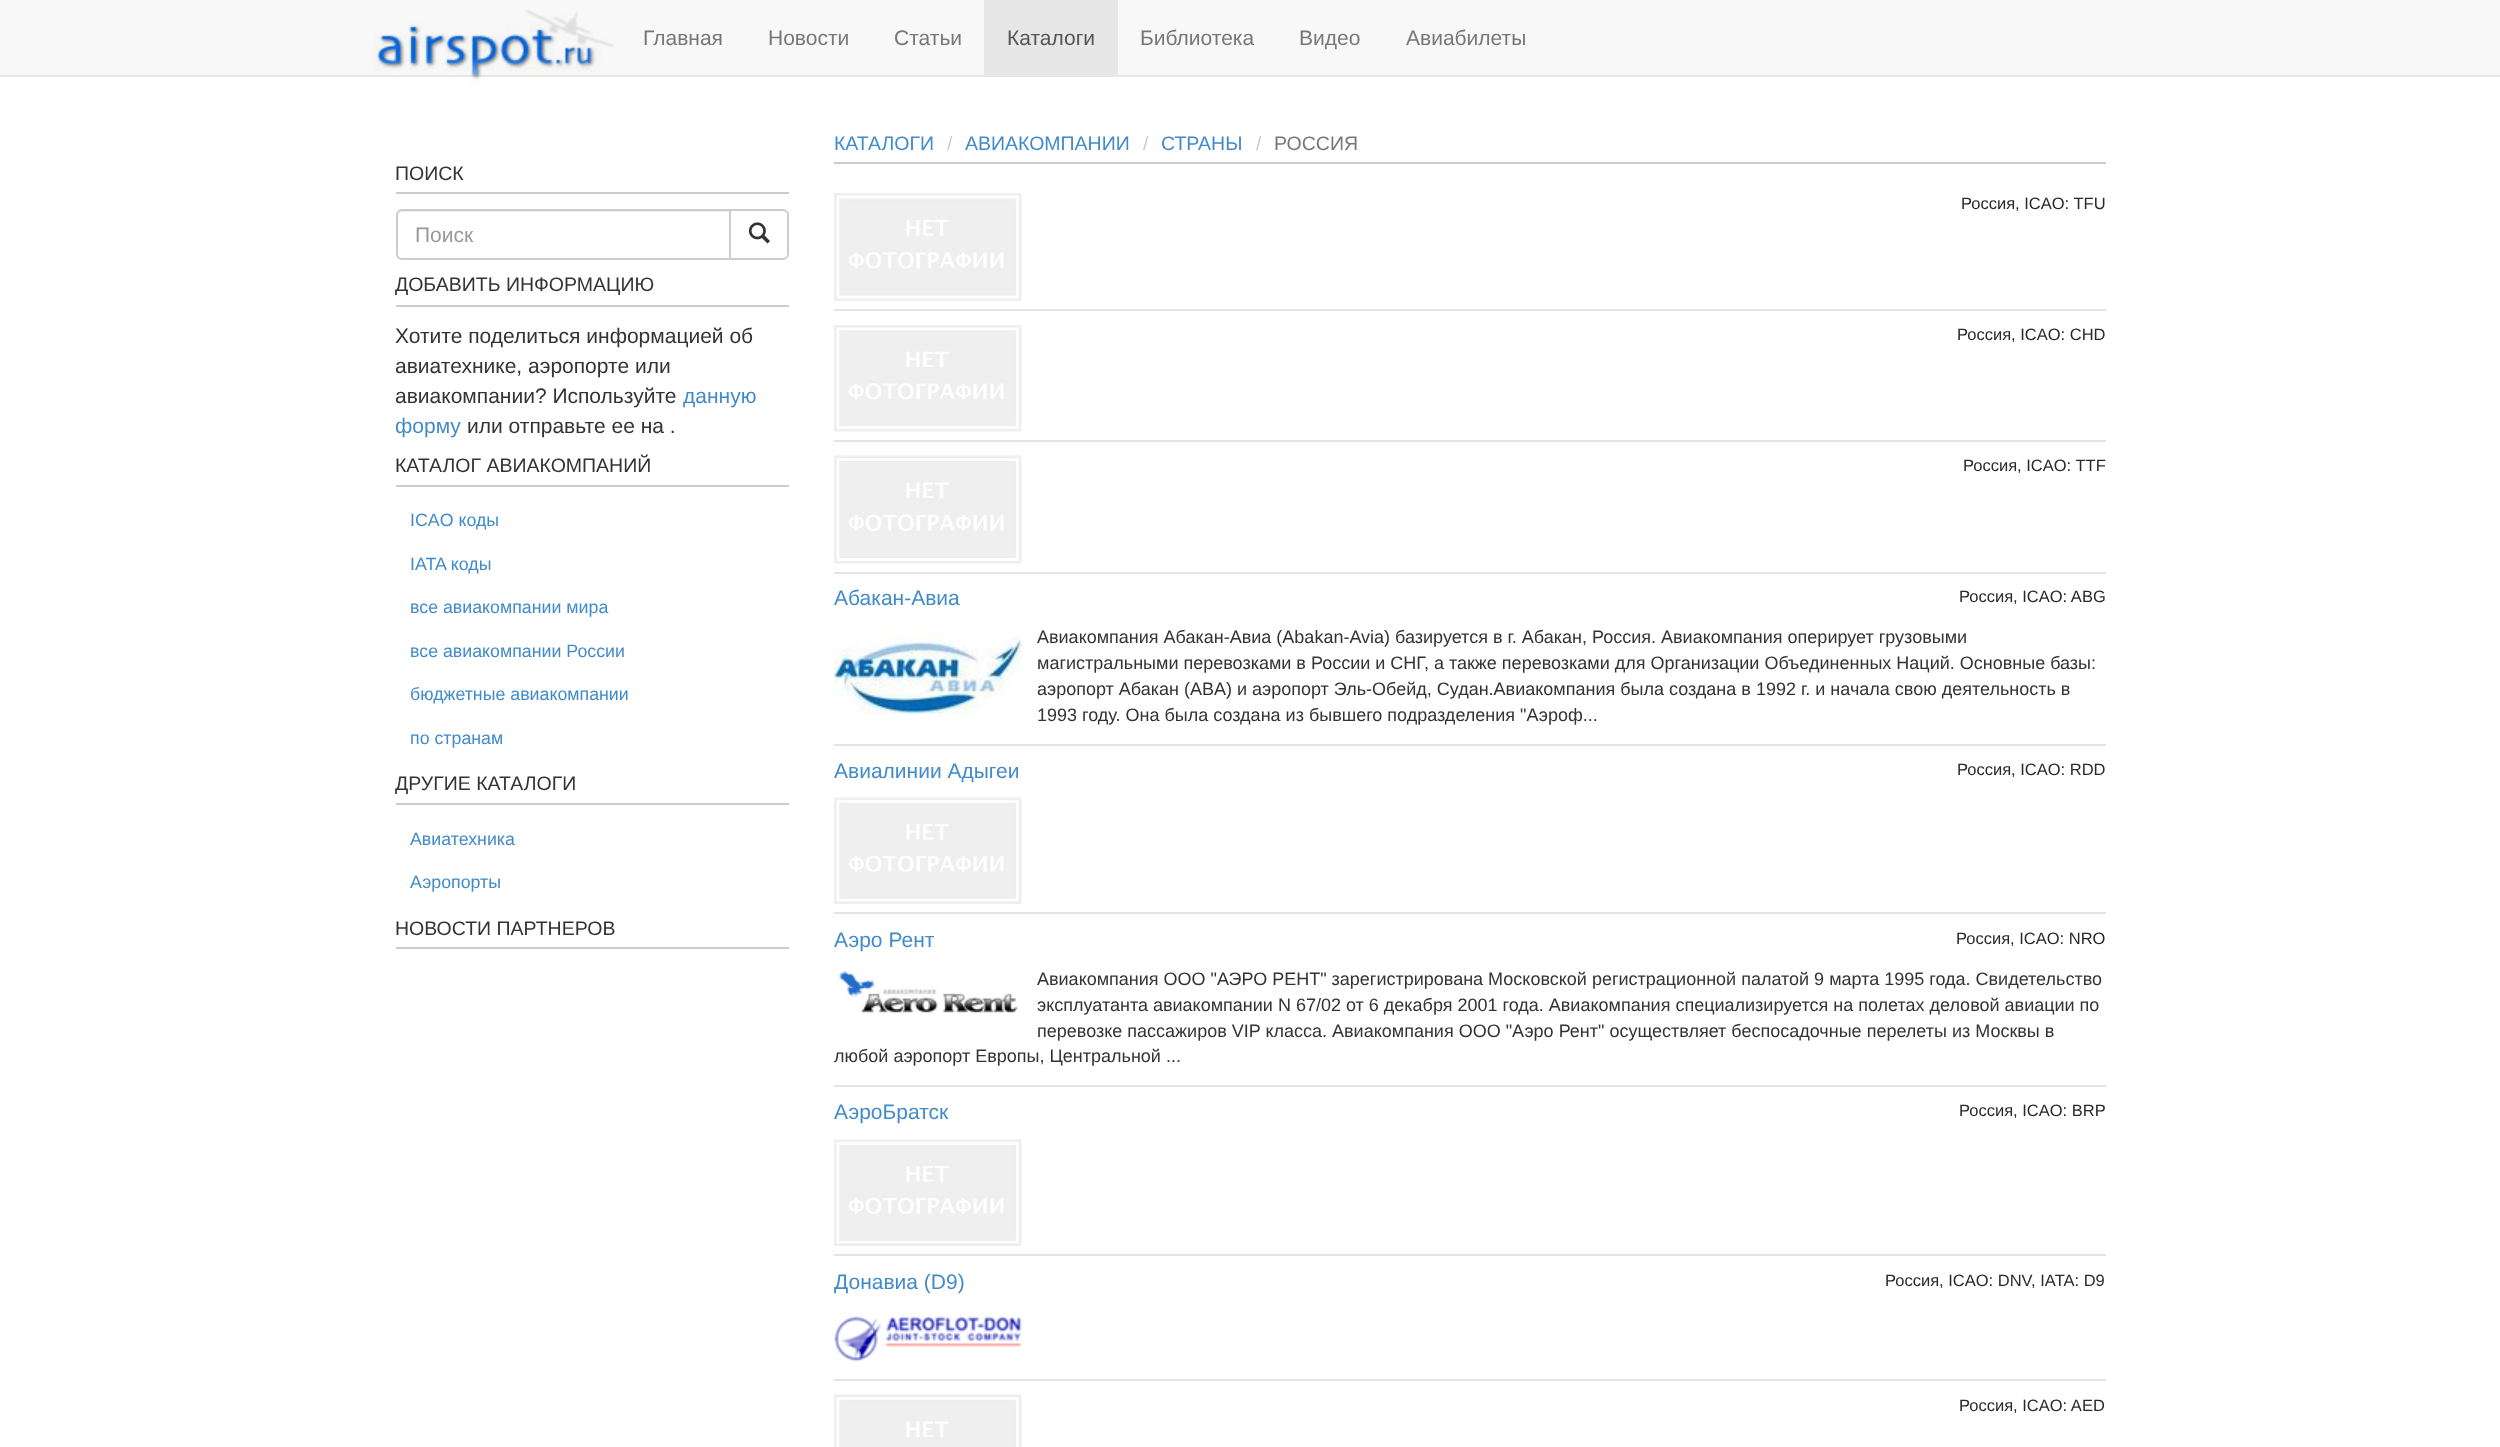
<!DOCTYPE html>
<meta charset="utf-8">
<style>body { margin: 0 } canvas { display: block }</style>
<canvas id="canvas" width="2500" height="1447"></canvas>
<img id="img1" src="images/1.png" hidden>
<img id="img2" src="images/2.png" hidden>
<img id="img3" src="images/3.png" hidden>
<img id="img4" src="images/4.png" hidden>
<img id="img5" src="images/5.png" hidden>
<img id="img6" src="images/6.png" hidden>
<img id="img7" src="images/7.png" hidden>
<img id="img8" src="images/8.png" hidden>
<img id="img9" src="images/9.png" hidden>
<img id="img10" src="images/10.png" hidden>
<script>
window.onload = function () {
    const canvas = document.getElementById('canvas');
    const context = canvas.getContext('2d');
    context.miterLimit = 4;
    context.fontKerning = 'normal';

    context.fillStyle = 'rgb(255, 255, 255)';
    context.fillRect(0, 0, 2500, 1447);
    context.fillStyle = 'rgb(248, 248, 248)';
    context.fillRect(0, 0, 2500, 75);
    context.fillStyle = 'rgb(231, 231, 231)';
    context.fillRect(0, 75, 2500, 2);
    context.drawImage(document.getElementById('img1'), 373, 10, 241, 74);
    context.fillRect(984, 0, 134, 75);
    context.fillStyle = 'rgb(204, 204, 204)';
    context.fillRect(396, 192, 393, 2);
    context.beginPath();
    context.roundRect(730, 210, 58, 49, [0, 5, 5, 0]);
    context.strokeStyle = 'rgb(204, 204, 204)';
    context.lineWidth = 2;
    context.stroke();
    context.fillStyle = 'rgb(255, 255, 255)';
    context.beginPath();
    context.roundRect(396, 209, 335, 51, [6, 0, 0, 6]);
    context.fill();
    context.fillStyle = 'rgb(236, 236, 236)';
    context.beginPath();
    context.moveTo(402, 212);
    context.lineTo(729, 212);
    context.lineTo(729, 210);
    context.lineTo(403, 210);
    context.bezierCurveTo(400, 210, 398, 213, 398, 216);
    context.bezierCurveTo(398, 214, 400, 212, 402, 212);
    context.closePath();
    context.fill();
    context.beginPath();
    context.roundRect(397, 210, 333, 49, [5, 0, 0, 5]);
    context.stroke();
    context.drawImage(document.getElementById('img2'), 748, 222, 22, 22);
    context.fillStyle = 'rgb(204, 204, 204)';
    context.fillRect(396, 305, 393, 2);
    context.fillRect(396, 485, 393, 2);
    context.fillRect(396, 803, 393, 2);
    context.fillRect(396, 947, 393, 2);
    context.fillRect(834, 162, 1272, 2);
    context.fillStyle = 'rgb(228, 228, 228)';
    context.fillRect(834, 309, 1272, 2);
    context.drawImage(document.getElementById('img3'), 834, 193, 188, 108);
    context.fillRect(834, 440, 1272, 2);
    context.drawImage(document.getElementById('img4'), 834, 325, 188, 107);
    context.fillRect(834, 572, 1272, 2);
    context.drawImage(document.getElementById('img5'), 834, 455, 188, 109);
    context.fillRect(834, 744, 1272, 2);
    context.drawImage(document.getElementById('img6'), 834, 625, 188, 89);
    context.fillRect(834, 912, 1272, 2);
    context.drawImage(document.getElementById('img7'), 834, 797, 188, 107);
    context.fillRect(834, 1085, 1272, 2);
    context.drawImage(document.getElementById('img8'), 838, 970, 180, 43);
    context.fillRect(834, 1254, 1272, 2);
    context.drawImage(document.getElementById('img7'), 834, 1139, 188, 107);
    context.fillRect(834, 1379, 1272, 2);
    context.drawImage(document.getElementById('img9'), 834, 1316, 188, 46);
    context.drawImage(document.getElementById('img10'), 834, 1394, 188, 53);
    context.font = '21px Liberation Sans';
    context.fillStyle = 'rgb(119, 119, 119)';
    context.fillText('Главная', 643, 45);
    context.fillText('Новости', 768, 45);
    context.fillText('Статьи', 894, 45);
    context.fillStyle = 'rgb(85, 85, 85)';
    context.fillText('Каталоги', 1007, 45);
    context.fillStyle = 'rgb(119, 119, 119)';
    context.fillText('Библиотека', 1140, 45);
    context.fillText('Видео', 1299, 45);
    context.fillText('Авиабилеты', 1406, 45);
    context.font = '19.5px Liberation Sans';
    context.fillStyle = 'rgb(51, 51, 51)';
    context.fillText('ПОИСК', 395, 180);
    context.font = '21px Liberation Sans';
    context.fillStyle = 'rgb(153, 153, 153)';
    context.fillText('Поиск', 415, 242);
    context.font = '19.5px Liberation Sans';
    context.fillStyle = 'rgb(51, 51, 51)';
    context.fillText('ДОБАВИТЬ ИНФОРМАЦИЮ', 395, 291);
    context.font = '21px Liberation Sans';
    context.fillText('Хотите поделиться информацией об', 395, 343);
    context.fillText('авиатехнике, аэропорте или', 395, 373);
    context.fillText('авиакомпании? Используйте', 395, 403);
    context.fillStyle = 'rgb(66, 139, 202)';
    context.fillText('данную', 683, 403);
    context.fillText('форму', 395, 433);
    context.fillStyle = 'rgb(51, 51, 51)';
    context.fillText('или отправьте ее на .', 467, 433);
    context.font = '19.5px Liberation Sans';
    context.fillText('КАТАЛОГ АВИАКОМПАНИЙ', 395, 472);
    context.font = '17.8px Liberation Sans';
    context.fillStyle = 'rgb(66, 139, 202)';
    context.fillText('ICAO коды', 410, 526);
    context.fillText('IATA коды', 410, 570);
    context.fillText('все авиакомпании мира', 410, 613);
    context.fillText('все авиакомпании России', 410, 657);
    context.fillText('бюджетные авиакомпании', 410, 700);
    context.fillText('по странам', 410, 744);
    context.font = '19.5px Liberation Sans';
    context.fillStyle = 'rgb(51, 51, 51)';
    context.fillText('ДРУГИЕ КАТАЛОГИ', 395, 790);
    context.font = '17.8px Liberation Sans';
    context.fillStyle = 'rgb(66, 139, 202)';
    context.fillText('Авиатехника', 410, 845);
    context.fillText('Аэропорты', 410, 888);
    context.font = '19.5px Liberation Sans';
    context.fillStyle = 'rgb(51, 51, 51)';
    context.fillText('НОВОСТИ ПАРТНЕРОВ', 395, 935);
    context.fillStyle = 'rgb(66, 139, 202)';
    context.fillText('КАТАЛОГИ', 834, 150);
    context.fillStyle = 'rgb(204, 204, 204)';
    context.fillText('/', 947, 150);
    context.fillStyle = 'rgb(66, 139, 202)';
    context.fillText('АВИАКОМПАНИИ', 965, 150);
    context.fillStyle = 'rgb(204, 204, 204)';
    context.fillText('/', 1143, 150);
    context.fillStyle = 'rgb(66, 139, 202)';
    context.fillText('СТРАНЫ', 1161, 150);
    context.fillStyle = 'rgb(204, 204, 204)';
    context.fillText('/', 1256, 150);
    context.fillStyle = 'rgb(119, 119, 119)';
    context.fillText('РОССИЯ', 1274, 150);
    context.font = '16.5px Liberation Sans';
    context.fillStyle = 'rgb(41, 41, 41)';
    context.fillText('Россия, ICAO: TFU', 1961, 209);
    context.fillText('Россия, ICAO: CHD', 1957, 340);
    context.fillText('Россия, ICAO: TTF', 1963, 471);
    context.font = '21px Liberation Sans';
    context.fillStyle = 'rgb(66, 139, 202)';
    context.fillText('Абакан-Авиа', 834, 605);
    context.font = '16.5px Liberation Sans';
    context.fillStyle = 'rgb(41, 41, 41)';
    context.fillText('Россия, ICAO: ABG', 1959, 602);
    context.font = '18px Liberation Sans';
    context.fillStyle = 'rgb(51, 51, 51)';
    context.fillText('Авиакомпания Абакан-Авиа (Abakan-Avia) базируется в г. Абакан, Россия. Авиакомпания оперирует грузовыми', 1037, 643);
    context.fillText('магистральными перевозками в России и СНГ, а также перевозками для Организации Объединенных Наций. Основные базы:', 1037, 669);
    context.fillText('аэропорт Абакан (ABA) и аэропорт Эль-Обейд, Судан.Авиакомпания была создана в 1992 г. и начала свою деятельность в', 1037, 695);
    context.fillText('1993 году. Она была создана из бывшего подразделения "Аэроф...', 1037, 721);
    context.font = '21px Liberation Sans';
    context.fillStyle = 'rgb(66, 139, 202)';
    context.fillText('Авиалинии Адыгеи', 834, 778);
    context.font = '16.5px Liberation Sans';
    context.fillStyle = 'rgb(41, 41, 41)';
    context.fillText('Россия, ICAO: RDD', 1957, 775);
    context.font = '21px Liberation Sans';
    context.fillStyle = 'rgb(66, 139, 202)';
    context.fillText('Аэро Рент', 834, 947);
    context.font = '16.5px Liberation Sans';
    context.fillStyle = 'rgb(41, 41, 41)';
    context.fillText('Россия, ICAO: NRO', 1956, 944);
    context.font = '18px Liberation Sans';
    context.fillStyle = 'rgb(51, 51, 51)';
    context.fillText('Авиакомпания ООО "АЭРО РЕНТ" зарегистрирована Московской регистрационной палатой 9 марта 1995 года. Свидетельство', 1037, 985);
    context.fillText('эксплуатанта авиакомпании N 67/02 от 6 декабря 2001 года. Авиакомпания специализируется на полетах деловой авиации по', 1037, 1011);
    context.fillText('перевозке пассажиров VIP класса. Авиакомпания ООО "Аэро Рент" осуществляет беспосадочные перелеты из Москвы в', 1037, 1037);
    context.fillText('любой аэропорт Европы, Центральной ...', 834, 1062);
    context.font = '21px Liberation Sans';
    context.fillStyle = 'rgb(66, 139, 202)';
    context.fillText('АэроБратск', 834, 1119);
    context.font = '16.5px Liberation Sans';
    context.fillStyle = 'rgb(41, 41, 41)';
    context.fillText('Россия, ICAO: BRP', 1959, 1116);
    context.font = '21px Liberation Sans';
    context.fillStyle = 'rgb(66, 139, 202)';
    context.fillText('Донавиа (D9)', 834, 1289);
    context.font = '16.5px Liberation Sans';
    context.fillStyle = 'rgb(41, 41, 41)';
    context.fillText('Россия, ICAO: DNV, IATA: D9', 1885, 1286);
    context.fillText('Россия, ICAO: AED', 1959, 1411);
};
</script>
